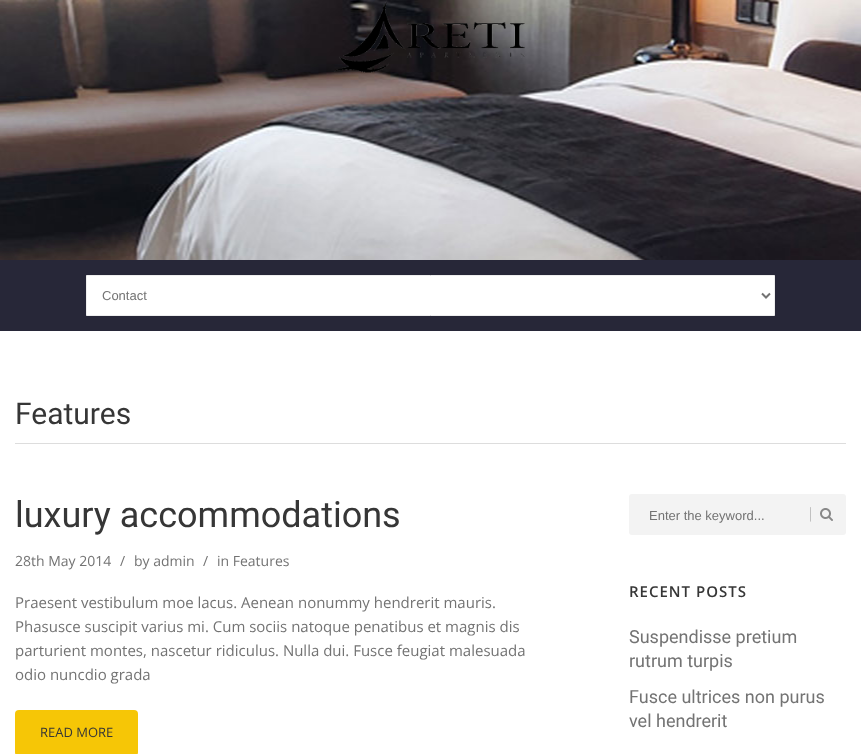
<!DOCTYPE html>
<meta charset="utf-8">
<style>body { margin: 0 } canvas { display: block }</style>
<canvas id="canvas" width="861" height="754"></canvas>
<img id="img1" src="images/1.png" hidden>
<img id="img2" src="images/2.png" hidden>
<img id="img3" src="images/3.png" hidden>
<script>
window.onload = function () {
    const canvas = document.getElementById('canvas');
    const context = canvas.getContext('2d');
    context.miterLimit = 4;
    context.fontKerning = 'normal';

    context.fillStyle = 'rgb(255, 255, 255)';
    context.fillRect(0, 0, 861, 754);
    context.drawImage(document.getElementById('img1'), 0, 0, 861, 260);
    context.drawImage(document.getElementById('img2'), 334, 0, 191, 73);
    context.fillStyle = 'rgb(39, 39, 56)';
    context.fillRect(0, 260, 861, 71);
    context.fillStyle = 'rgb(255, 255, 255)';
    context.beginPath();
    context.rect(86.5, 275.5, 688, 40);
    context.fill();
    context.strokeStyle = 'rgb(238, 238, 238)';
    context.stroke();
    context.beginPath();
    context.moveTo(762, 293.5);
    context.lineTo(766, 297.5);
    context.lineTo(770, 293.5);
    context.strokeStyle = 'rgb(115, 115, 115)';
    context.lineWidth = 2;
    context.stroke();
    context.fillStyle = 'rgb(221, 221, 221)';
    context.fillRect(15, 443, 831, 1);
    context.fillStyle = 'rgb(246, 198, 6)';
    context.beginPath();
    context.roundRect(15, 710, 123, 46, 4);
    context.fill();
    context.fillStyle = 'rgb(243, 243, 243)';
    context.beginPath();
    context.roundRect(629, 494, 217, 41, 3);
    context.fill();
    context.drawImage(document.getElementById('img3'), 810, 507, 23, 15);
    context.font = '13px Liberation Sans';
    context.fillStyle = 'rgb(115, 115, 115)';
    context.fillText('Contact', 102, 300);
    context.font = '30px Roboto';
    context.fillStyle = 'rgb(54, 54, 54)';
    context.fillText('Features', 15, 424);
    context.font = '36px Roboto';
    context.fillText('luxury accommodations', 15, 527);
    context.font = '14px Open Sans';
    context.fillStyle = 'rgb(115, 115, 115)';
    context.fillText('28th May 2014', 15, 566);
    context.fillText('/', 120, 566);
    context.fillText('by admin', 134, 566);
    context.fillText('/', 203, 566);
    context.fillText('in Features', 217, 566);
    context.font = '15px Open Sans';
    context.fillText('Praesent vestibulum moe lacus. Aenean nonummy hendrerit mauris.', 15, 608);
    context.fillText('Phasusce suscipit varius mi. Cum sociis natoque penatibus et magnis dis', 15, 632);
    context.fillText('parturient montes, nascetur ridiculus. Nulla dui. Fusce feugiat malesuada', 15, 656);
    context.fillText('odio nuncdio grada', 15, 680);
    context.font = '13px Open Sans';
    context.fillStyle = 'rgb(54, 54, 54)';
    context.fillText('READ MORE', 40, 737);
    context.font = '13px Liberation Sans';
    context.fillStyle = 'rgb(115, 115, 115)';
    context.fillText('Enter the keyword...', 649, 520);
    context.letterSpacing = '1px';
    context.font = '600 15px Open Sans';
    context.fillStyle = 'rgb(54, 54, 54)';
    context.fillText('RECENT POSTS', 629, 597);
    context.letterSpacing = '0px';
    context.font = '18px Roboto';
    context.fillStyle = 'rgb(115, 115, 115)';
    context.fillText('Suspendisse pretium', 629, 643);
    context.fillText('rutrum turpis', 629, 667);
    context.fillText('Fusce ultrices non purus', 629, 703);
    context.fillText('vel hendrerit', 629, 727);
};
</script>
